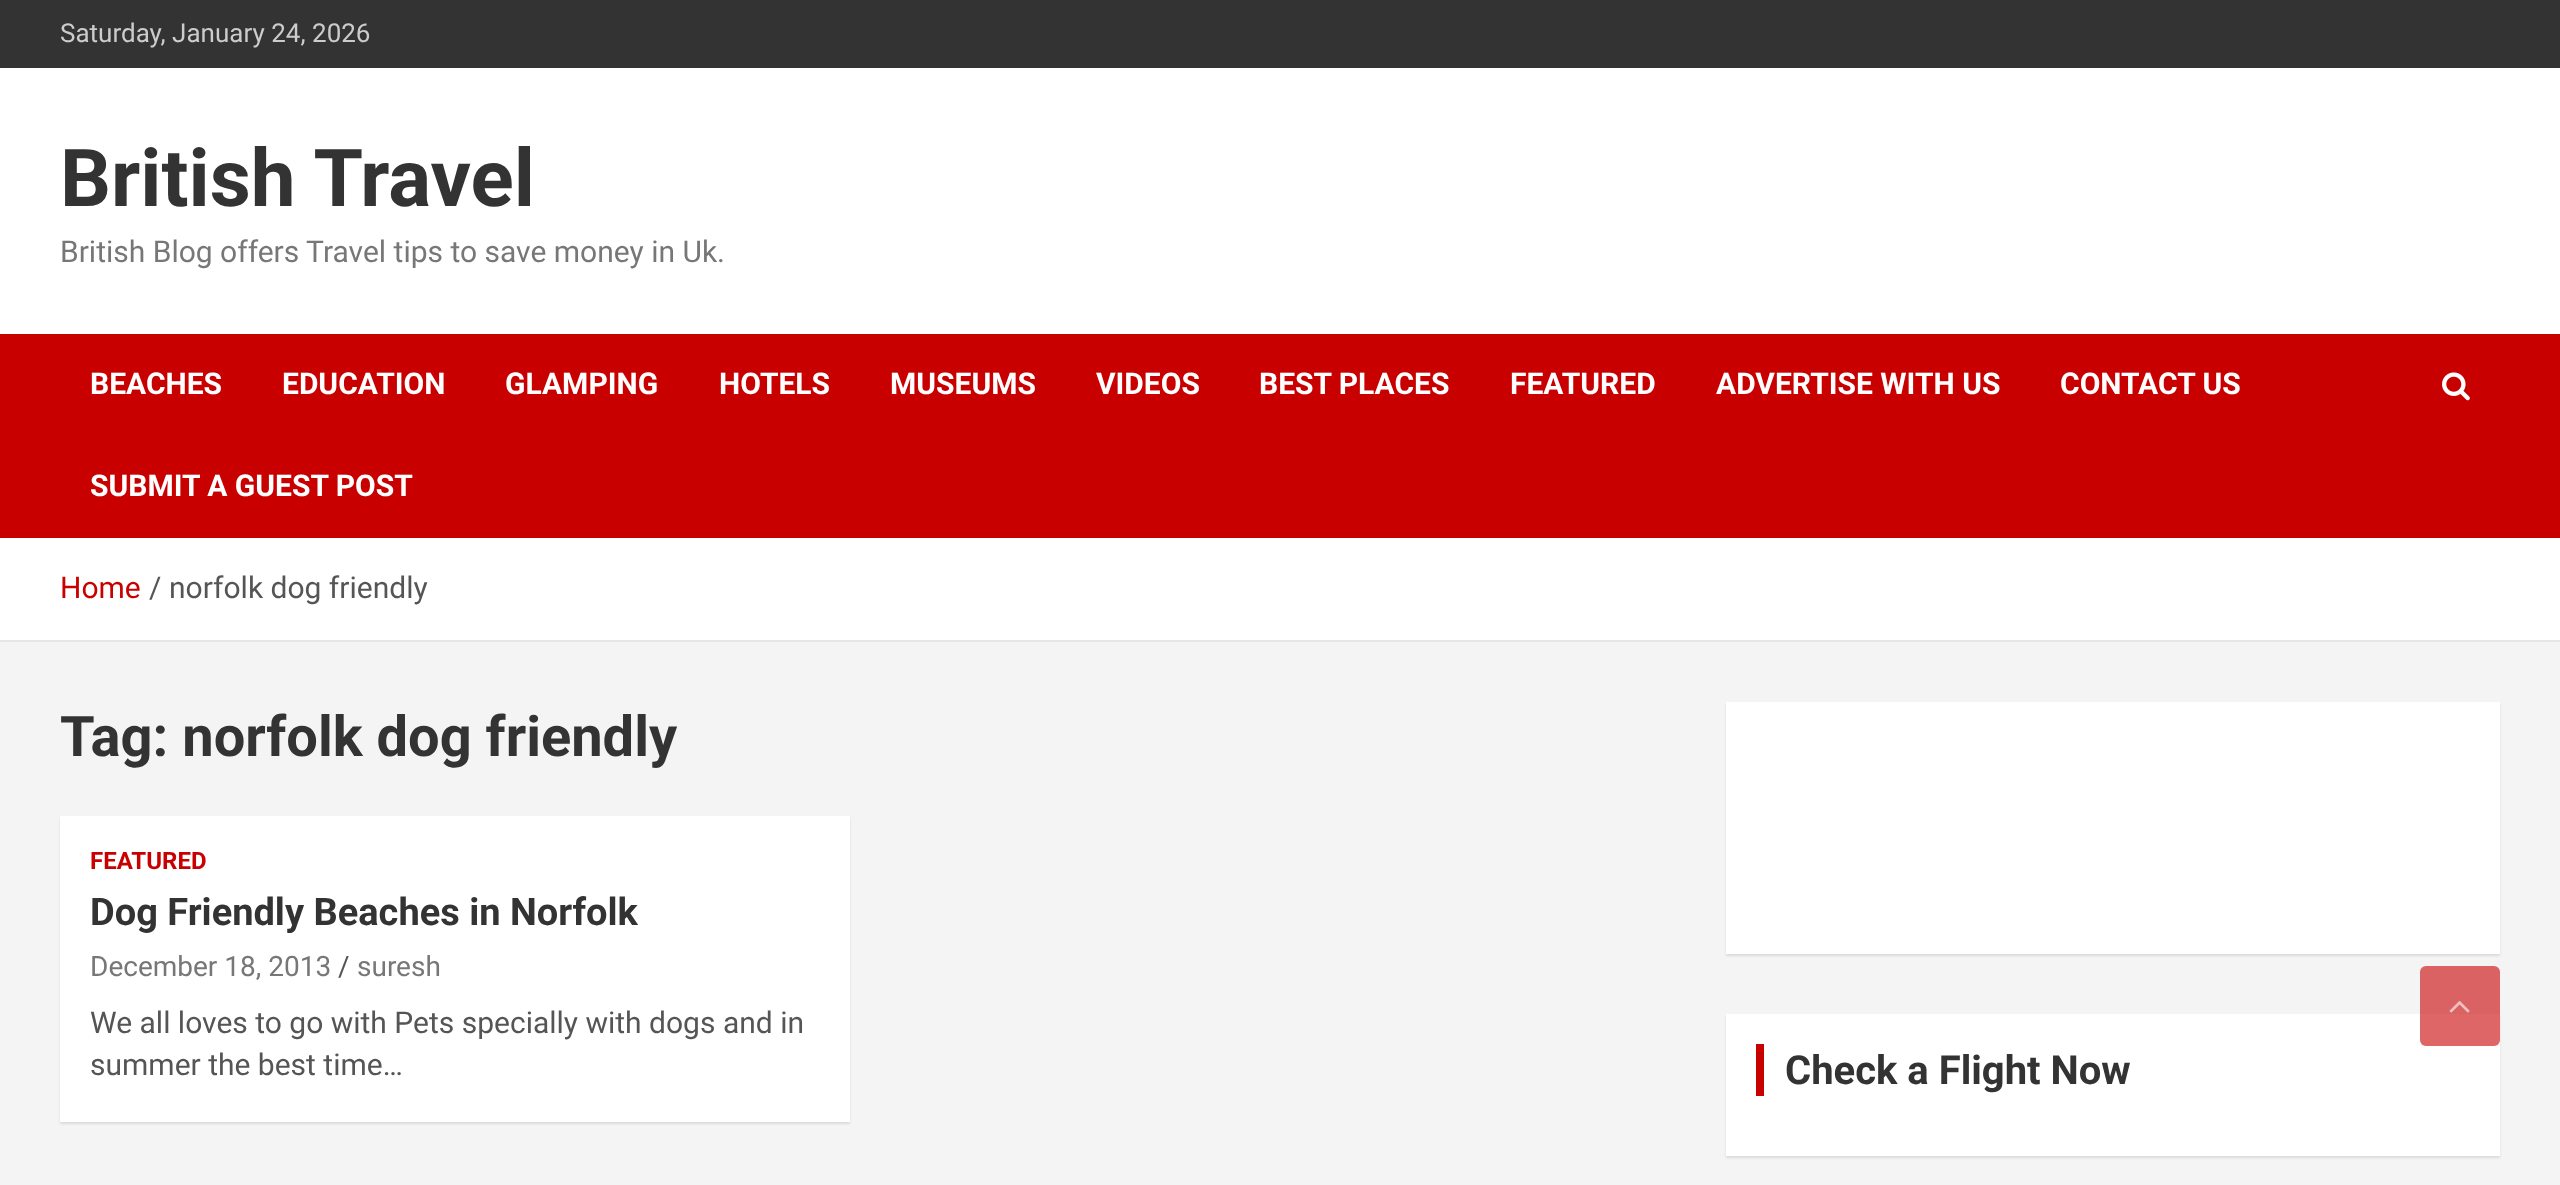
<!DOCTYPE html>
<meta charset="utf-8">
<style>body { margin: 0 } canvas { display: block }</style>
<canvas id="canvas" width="2560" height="1185"></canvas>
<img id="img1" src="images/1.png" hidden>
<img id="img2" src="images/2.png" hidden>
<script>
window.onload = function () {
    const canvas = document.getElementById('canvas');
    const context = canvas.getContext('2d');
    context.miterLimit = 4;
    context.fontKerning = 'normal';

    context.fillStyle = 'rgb(244, 244, 244)';
    context.fillRect(0, 0, 2560, 1185);
    context.fillStyle = 'rgb(51, 51, 51)';
    context.fillRect(0, 0, 2560, 68);
    context.fillStyle = 'rgb(255, 255, 255)';
    context.fillRect(0, 68, 2560, 266);
    context.fillStyle = 'rgb(200, 0, 0)';
    context.fillRect(0, 334, 2560, 204);
    context.drawImage(document.getElementById('img1'), 2442, 372, 28, 29);
    context.fillStyle = 'rgb(255, 255, 255)';
    context.fillRect(0, 538, 2560, 102);
    context.fillStyle = 'rgb(230, 230, 230)';
    context.fillRect(0, 640, 2560, 2);
    context.fillStyle = 'rgba(0, 0, 0, 0.1)';
    context.filter = 'blur(1px)';
    context.beginPath();
    context.rect(60, 818, 790, 306);
    context.fill();
    context.filter = 'none';
    context.fillStyle = 'rgb(255, 255, 255)';
    context.fillRect(60, 816, 790, 306);
    context.fillStyle = 'rgba(0, 0, 0, 0.1)';
    context.filter = 'blur(1px)';
    context.beginPath();
    context.rect(1726, 704, 774, 252);
    context.fill();
    context.filter = 'none';
    context.fillStyle = 'rgb(255, 255, 255)';
    context.fillRect(1726, 702, 774, 252);
    context.fillStyle = 'rgba(0, 0, 0, 0.1)';
    context.filter = 'blur(1px)';
    context.beginPath();
    context.rect(1726, 1016, 774, 142);
    context.fill();
    context.filter = 'none';
    context.fillStyle = 'rgb(255, 255, 255)';
    context.fillRect(1726, 1014, 774, 142);
    context.fillStyle = 'rgb(200, 0, 0)';
    context.fillRect(1756, 1044, 8, 52);
    context.fillStyle = 'rgba(200, 0, 0, 0.6)';
    context.beginPath();
    context.roundRect(2420, 966, 80, 80, 6);
    context.fill();
    context.drawImage(document.getElementById('img2'), 2449, 1001, 21, 12);
    context.font = '26px Roboto';
    context.fillStyle = 'rgb(204, 204, 204)';
    context.fillText('Saturday, January 24, 2026', 60, 42);
    context.font = 'bold 80px Roboto';
    context.fillStyle = 'rgb(51, 51, 51)';
    context.fillText('British Travel', 60, 206);
    context.font = '30px Roboto';
    context.fillStyle = 'rgb(119, 119, 119)';
    context.fillText('British Blog offers Travel tips to save money in Uk.', 60, 262);
    context.font = 'bold 30px Roboto';
    context.fillStyle = 'rgb(255, 255, 255)';
    context.fillText('BEACHES', 90, 394);
    context.fillText('EDUCATION', 282, 394);
    context.fillText('GLAMPING', 505, 394);
    context.fillText('HOTELS', 719, 394);
    context.fillText('MUSEUMS', 890, 394);
    context.fillText('VIDEOS', 1096, 394);
    context.fillText('BEST PLACES', 1259, 394);
    context.fillText('FEATURED', 1510, 394);
    context.fillText('ADVERTISE WITH US', 1716, 394);
    context.fillText('CONTACT US', 2060, 394);
    context.fillText('SUBMIT A GUEST POST', 90, 496);
    context.font = '30px Roboto';
    context.fillStyle = 'rgb(200, 0, 0)';
    context.fillText('Home', 60, 598);
    context.fillStyle = 'rgb(85, 85, 85)';
    context.fillText('/', 149, 598);
    context.fillText('norfolk dog friendly', 169, 598);
    context.font = 'bold 56px Roboto';
    context.fillStyle = 'rgb(51, 51, 51)';
    context.fillText('Tag: norfolk dog friendly', 60, 756);
    context.font = 'bold 24px Roboto';
    context.fillStyle = 'rgb(200, 0, 0)';
    context.fillText('FEATURED', 90, 869);
    context.font = 'bold 38px Roboto';
    context.fillStyle = 'rgb(51, 51, 51)';
    context.fillText('Dog Friendly Beaches in Norfolk', 90, 925);
    context.font = '28px Roboto';
    context.fillStyle = 'rgb(119, 119, 119)';
    context.fillText('December 18, 2013', 90, 976);
    context.fillStyle = 'rgb(85, 85, 85)';
    context.fillText('/', 338, 976);
    context.fillStyle = 'rgb(119, 119, 119)';
    context.fillText('suresh', 357, 976);
    context.font = '30px Roboto';
    context.fillStyle = 'rgb(85, 85, 85)';
    context.fillText('We all loves to go with Pets specially with dogs and in', 90, 1033);
    context.fillText('summer the best time…', 90, 1075);
    context.font = 'bold 40px Roboto';
    context.fillStyle = 'rgb(51, 51, 51)';
    context.fillText('Check a Flight Now', 1785, 1084);
};
</script>
